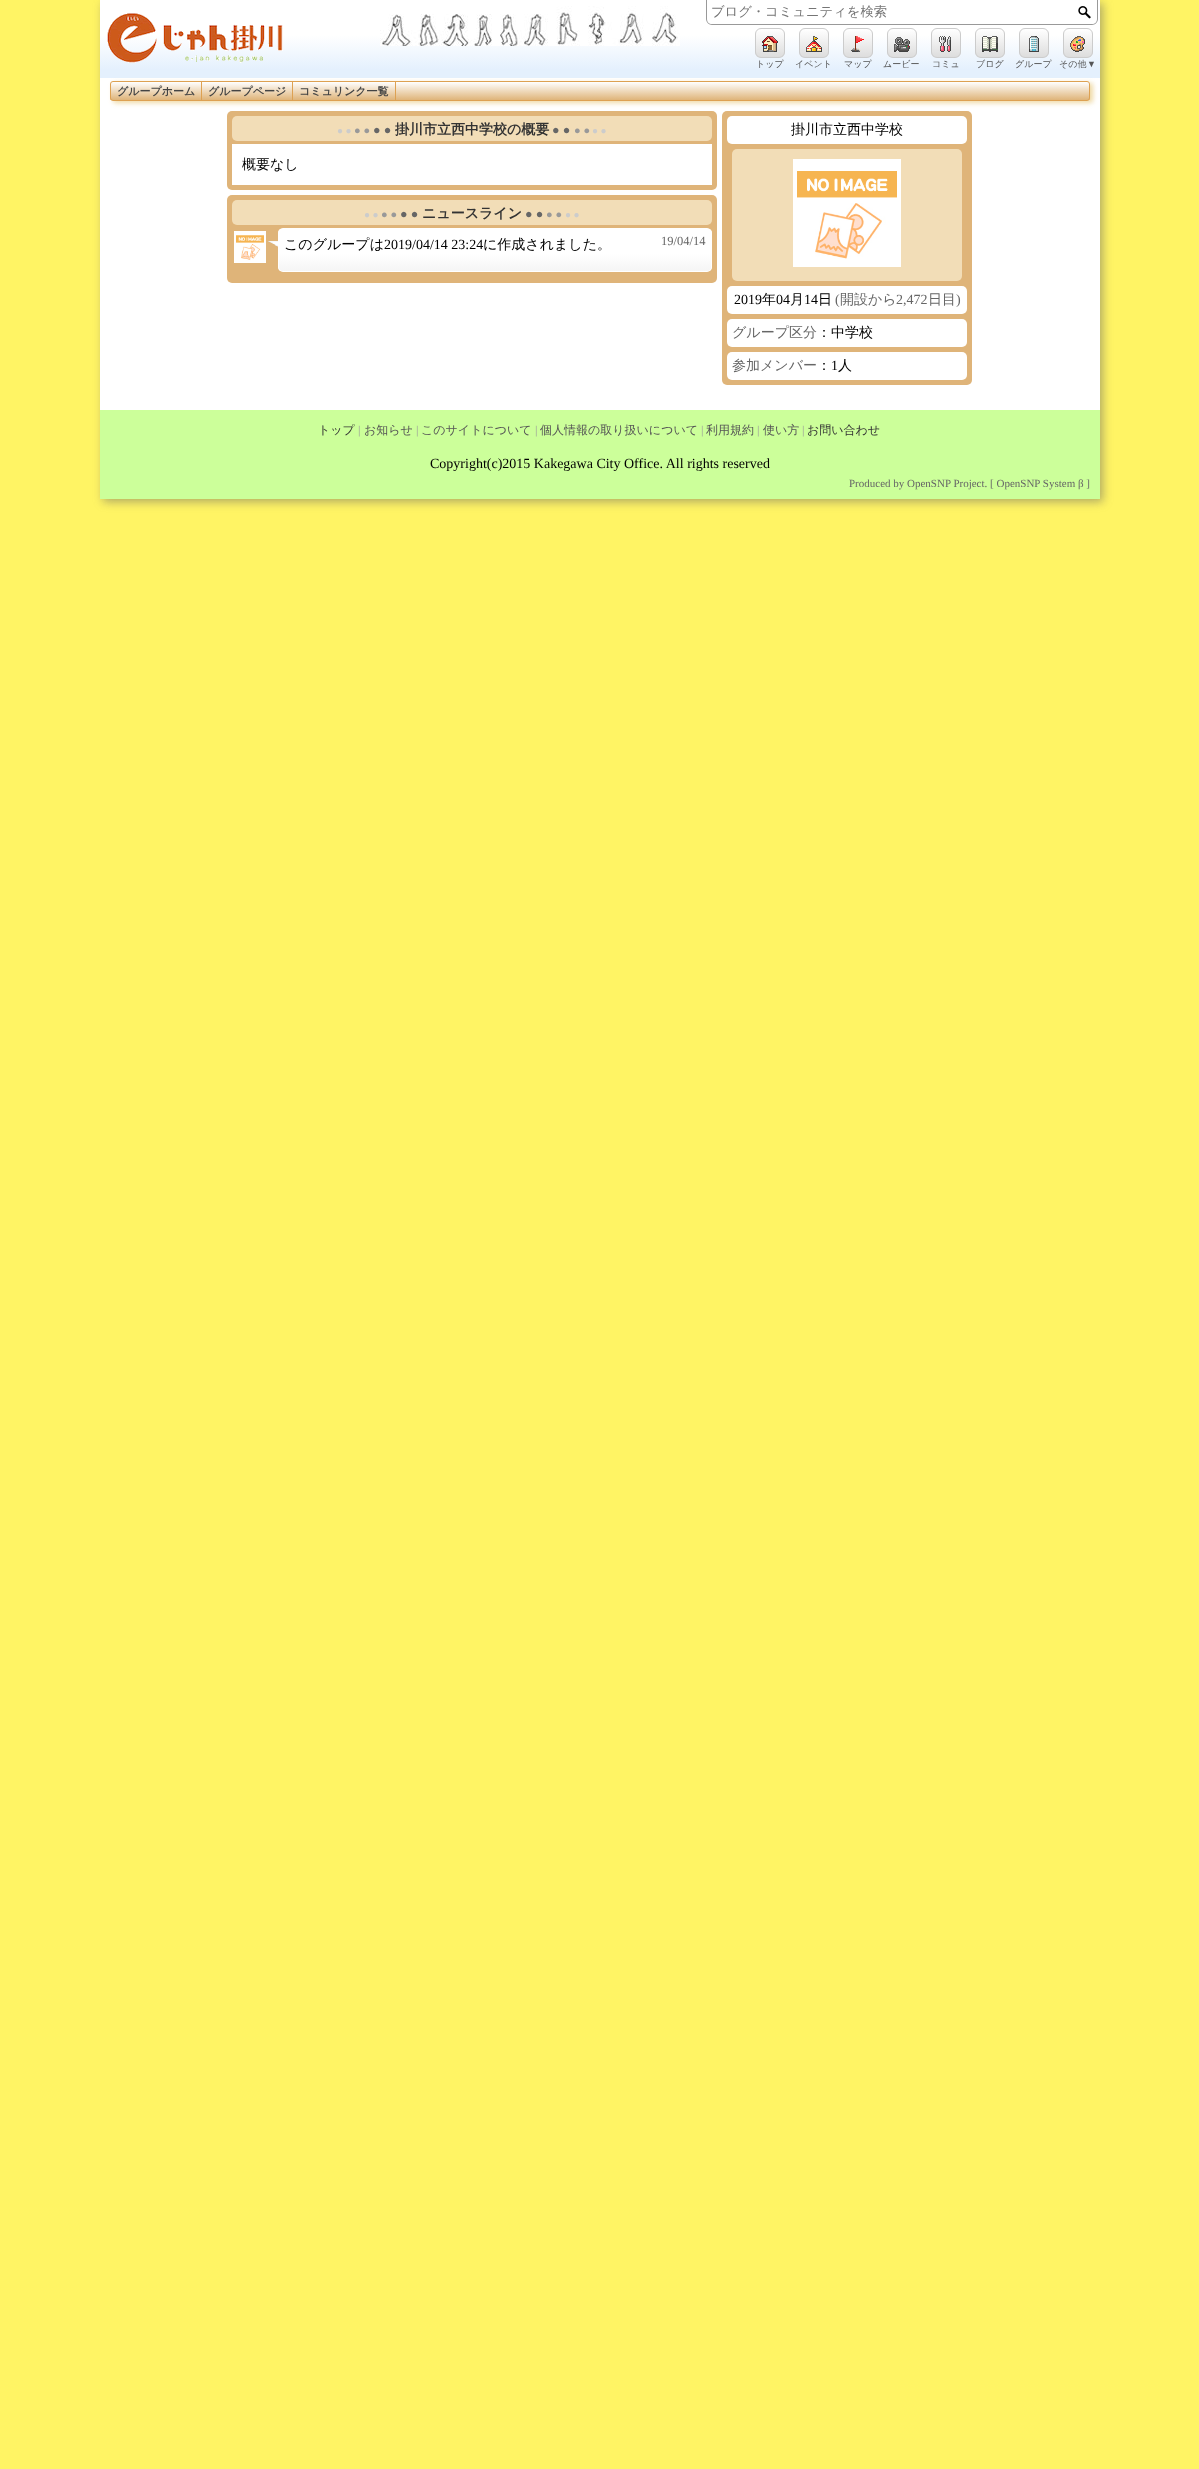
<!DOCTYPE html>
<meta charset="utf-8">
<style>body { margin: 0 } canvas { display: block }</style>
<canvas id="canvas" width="1199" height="2469"></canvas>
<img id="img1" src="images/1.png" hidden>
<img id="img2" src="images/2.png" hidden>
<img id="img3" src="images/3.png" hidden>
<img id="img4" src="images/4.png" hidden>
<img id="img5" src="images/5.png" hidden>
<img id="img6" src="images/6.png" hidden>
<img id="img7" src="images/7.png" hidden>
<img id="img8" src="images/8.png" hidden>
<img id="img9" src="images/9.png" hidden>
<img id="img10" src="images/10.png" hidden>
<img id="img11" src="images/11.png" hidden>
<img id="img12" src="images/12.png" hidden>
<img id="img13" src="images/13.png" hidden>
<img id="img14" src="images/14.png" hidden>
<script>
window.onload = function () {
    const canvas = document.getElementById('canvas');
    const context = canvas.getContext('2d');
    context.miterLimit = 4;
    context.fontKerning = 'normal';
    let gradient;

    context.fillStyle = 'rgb(255, 244, 100)';
    context.fillRect(0, 0, 1199, 2469);
    context.fillStyle = 'rgba(100, 100, 100, 0.5)';
    context.filter = 'blur(5px)';
    context.beginPath();
    context.rect(103, 3, 1000, 499);
    context.fill();
    context.filter = 'none';
    context.fillStyle = 'rgb(255, 255, 255)';
    context.fillRect(100, 78, 1000, 332);
    gradient = context.createLinearGradient(600, 0, 600, 70);
    gradient.addColorStop(0.5, 'rgb(255, 255, 255)');
    gradient.addColorStop(1, 'rgb(228, 240, 253)');
    context.fillStyle = gradient;
    context.fillRect(100, 0, 1000, 70);
    context.drawImage(document.getElementById('img1'), 107, 13, 176, 50);
    context.drawImage(document.getElementById('img2'), 380, 6, 300, 40);
    context.fillStyle = 'rgb(153, 153, 153)';
    context.beginPath();
    context.moveTo(706, 0);
    context.lineTo(1098, 0);
    context.lineTo(1098, 19);
    context.bezierCurveTo(1098, 22, 1095, 25, 1092, 25);
    context.lineTo(712, 25);
    context.bezierCurveTo(709, 25, 706, 22, 706, 19);
    context.closePath();
    context.moveTo(707, 0);
    context.lineTo(1097, 0);
    context.lineTo(1097, 19);
    context.bezierCurveTo(1097, 22, 1095, 24, 1092, 24);
    context.lineTo(712, 24);
    context.bezierCurveTo(709, 24, 707, 22, 707, 19);
    context.closePath();
    context.fill('evenodd');
    context.drawImage(document.getElementById('img3'), 1078, 6, 13, 13);
    context.save();
    context.beginPath();
    context.roundRect(755, 28, 30, 30, 6);
    context.clip();
    gradient = context.createLinearGradient(770, 29, 770, 57);
    gradient.addColorStop(0, 'rgb(255, 255, 255)');
    gradient.addColorStop(1, 'rgb(221, 221, 221)');
    context.fillStyle = gradient;
    context.fillRect(755, 29, 30, 28);
    context.restore();
    context.beginPath();
    context.roundRect(755.5, 28.5, 29, 29, 5.5);
    context.strokeStyle = 'rgb(204, 204, 204)';
    context.stroke();
    context.drawImage(document.getElementById('img4'), 762, 36, 16, 16);
    context.save();
    context.beginPath();
    context.roundRect(799, 28, 30, 30, 6);
    context.clip();
    gradient = context.createLinearGradient(814, 29, 814, 57);
    gradient.addColorStop(0, 'rgb(255, 255, 255)');
    gradient.addColorStop(1, 'rgb(221, 221, 221)');
    context.fillStyle = gradient;
    context.fillRect(799, 29, 30, 28);
    context.restore();
    context.beginPath();
    context.roundRect(799.5, 28.5, 29, 29, 5.5);
    context.stroke();
    context.drawImage(document.getElementById('img5'), 806, 36, 16, 16);
    context.save();
    context.beginPath();
    context.roundRect(843, 28, 30, 30, 6);
    context.clip();
    gradient = context.createLinearGradient(858, 29, 858, 57);
    gradient.addColorStop(0, 'rgb(255, 255, 255)');
    gradient.addColorStop(1, 'rgb(221, 221, 221)');
    context.fillStyle = gradient;
    context.fillRect(843, 29, 30, 28);
    context.restore();
    context.beginPath();
    context.roundRect(843.5, 28.5, 29, 29, 5.5);
    context.stroke();
    context.drawImage(document.getElementById('img6'), 851, 36, 13, 16);
    context.save();
    context.beginPath();
    context.roundRect(887, 28, 30, 30, 6);
    context.clip();
    gradient = context.createLinearGradient(902, 29, 902, 57);
    gradient.addColorStop(0, 'rgb(255, 255, 255)');
    gradient.addColorStop(1, 'rgb(221, 221, 221)');
    context.fillStyle = gradient;
    context.fillRect(887, 29, 30, 28);
    context.restore();
    context.beginPath();
    context.roundRect(887.5, 28.5, 29, 29, 5.5);
    context.stroke();
    context.drawImage(document.getElementById('img7'), 894, 37, 16, 15);
    context.save();
    context.beginPath();
    context.roundRect(931, 28, 30, 30, 6);
    context.clip();
    gradient = context.createLinearGradient(946, 29, 946, 57);
    gradient.addColorStop(0, 'rgb(255, 255, 255)');
    gradient.addColorStop(1, 'rgb(221, 221, 221)');
    context.fillStyle = gradient;
    context.fillRect(931, 29, 30, 28);
    context.restore();
    context.beginPath();
    context.roundRect(931.5, 28.5, 29, 29, 5.5);
    context.stroke();
    context.drawImage(document.getElementById('img8'), 939, 36, 12, 16);
    context.save();
    context.beginPath();
    context.roundRect(975, 28, 30, 30, 6);
    context.clip();
    gradient = context.createLinearGradient(990, 29, 990, 57);
    gradient.addColorStop(0, 'rgb(255, 255, 255)');
    gradient.addColorStop(1, 'rgb(221, 221, 221)');
    context.fillStyle = gradient;
    context.fillRect(975, 29, 30, 28);
    context.restore();
    context.beginPath();
    context.roundRect(975.5, 28.5, 29, 29, 5.5);
    context.stroke();
    context.drawImage(document.getElementById('img9'), 982, 36, 16, 16);
    context.save();
    context.beginPath();
    context.roundRect(1019, 28, 30, 30, 6);
    context.clip();
    gradient = context.createLinearGradient(1034, 29, 1034, 57);
    gradient.addColorStop(0, 'rgb(255, 255, 255)');
    gradient.addColorStop(1, 'rgb(221, 221, 221)');
    context.fillStyle = gradient;
    context.fillRect(1019, 29, 30, 28);
    context.restore();
    context.beginPath();
    context.roundRect(1019.5, 28.5, 29, 29, 5.5);
    context.stroke();
    context.drawImage(document.getElementById('img10'), 1029, 36, 10, 16);
    context.save();
    context.beginPath();
    context.roundRect(1063, 28, 30, 30, 6);
    context.clip();
    gradient = context.createLinearGradient(1078, 29, 1078, 57);
    gradient.addColorStop(0, 'rgb(255, 255, 255)');
    gradient.addColorStop(1, 'rgb(221, 221, 221)');
    context.fillStyle = gradient;
    context.fillRect(1063, 29, 30, 28);
    context.restore();
    context.beginPath();
    context.roundRect(1063.5, 28.5, 29, 29, 5.5);
    context.stroke();
    context.drawImage(document.getElementById('img11'), 1070, 36, 15, 16);
    context.fillStyle = 'rgb(228, 240, 253)';
    context.fillRect(100, 70, 1000, 8);
    context.fillStyle = 'rgba(223, 180, 73, 0.5)';
    context.filter = 'blur(2.5px)';
    context.beginPath();
    context.roundRect(113, 83, 980, 20, 3);
    context.fill();
    context.filter = 'none';
    context.save();
    context.beginPath();
    context.roundRect(110, 81, 980, 20, 3);
    context.clip();
    gradient = context.createLinearGradient(600, 82, 600, 100);
    gradient.addColorStop(0, 'rgb(255, 255, 255)');
    gradient.addColorStop(1, 'rgb(223, 180, 121)');
    context.fillStyle = gradient;
    context.fillRect(110, 82, 980, 18);
    context.restore();
    context.beginPath();
    context.roundRect(110.5, 81.5, 979, 19, 2.5);
    context.strokeStyle = 'rgb(221, 161, 82)';
    context.stroke();
    context.fillStyle = 'rgb(221, 161, 82)';
    context.fillRect(201, 82, 1, 19);
    context.fillRect(292, 82, 1, 19);
    context.fillRect(395, 82, 1, 19);
    context.fillStyle = 'rgb(223, 180, 121)';
    context.beginPath();
    context.roundRect(227, 111, 490, 79, 5);
    context.fill();
    context.fillStyle = 'rgb(242, 221, 183)';
    context.beginPath();
    context.roundRect(232, 116, 480, 25, 5);
    context.fill();
    context.fillStyle = 'rgb(255, 255, 255)';
    context.fillRect(232, 144, 480, 41);
    context.fillStyle = 'rgb(223, 180, 121)';
    context.beginPath();
    context.roundRect(227, 195, 490, 88, 5);
    context.fill();
    context.fillStyle = 'rgb(242, 221, 183)';
    context.beginPath();
    context.roundRect(232, 200, 480, 25, 5);
    context.fill();
    context.strokeStyle = 'rgb(255, 255, 255)';
    context.lineWidth = 2;
    context.strokeRect(235, 232, 30, 30);
    context.drawImage(document.getElementById('img12'), 236, 233, 28, 28);
    context.drawImage(document.getElementById('img13'), 268, 241, 10, 6);
    context.save();
    context.beginPath();
    context.roundRect(278, 228, 434, 44, 5);
    context.clip();
    gradient = context.createLinearGradient(495, 229, 495, 271);
    gradient.addColorStop(0, 'rgb(255, 255, 255)');
    gradient.addColorStop(0.6, 'rgb(255, 255, 255)');
    gradient.addColorStop(1, 'rgb(245, 245, 245)');
    context.fillStyle = gradient;
    context.fillRect(278, 229, 434, 42);
    context.restore();
    context.beginPath();
    context.roundRect(278.5, 228.5, 433, 43, 4.5);
    context.lineWidth = 1;
    context.stroke();
    context.fillStyle = 'rgb(223, 180, 121)';
    context.beginPath();
    context.roundRect(722, 111, 250, 274, 5);
    context.fill();
    context.fillStyle = 'rgb(255, 255, 255)';
    context.beginPath();
    context.roundRect(727, 116, 240, 28, 5);
    context.fill();
    context.fillStyle = 'rgb(242, 221, 183)';
    context.beginPath();
    context.roundRect(732, 149, 230, 132, 5);
    context.fill();
    context.fillStyle = 'rgb(255, 255, 255)';
    context.fillRect(793, 159, 108, 108);
    context.drawImage(document.getElementById('img14'), 797, 171, 100, 88);
    context.beginPath();
    context.roundRect(727, 286, 240, 28, 5);
    context.fill();
    context.beginPath();
    context.roundRect(727, 319, 240, 28, 5);
    context.fill();
    context.beginPath();
    context.roundRect(727, 352, 240, 28, 5);
    context.fill();
    context.fillStyle = 'rgb(204, 255, 154)';
    context.fillRect(100, 410, 1000, 89);
    context.font = '500 13.3px WenQuanYi Zen Hei';
    context.fillStyle = 'rgb(117, 117, 117)';
    context.fillText('ブログ・コミュニティを検索', 711, 16);
    context.font = '500 9px WenQuanYi Zen Hei';
    context.fillStyle = 'rgb(85, 85, 85)';
    context.fillText('トップ', 756, 67);
    context.fillText('イベント', 795, 67);
    context.fillText('マップ', 844, 67);
    context.fillText('ムービー', 883, 67);
    context.fillText('コミュ', 932, 67);
    context.fillText('ブログ', 976, 67);
    context.fillText('グループ', 1015, 67);
    context.fillText('その他', 1059, 67);
    context.font = '9px Liberation Serif';
    context.fillText('▼', 1087, 67);
    context.font = 'bold 11px WenQuanYi Zen Hei';
    context.fillStyle = 'rgb(68, 68, 68)';
    context.fillText('グループホーム', 117, 95);
    context.fillText('グループページ', 208, 95);
    context.fillText('コミュリンク一覧', 299, 95);
    context.font = 'bold 10px Liberation Serif';
    context.fillStyle = 'rgb(204, 204, 204)';
    context.fillText('● ●', 337, 134);
    context.font = 'bold 11px Liberation Serif';
    context.fillStyle = 'rgb(153, 153, 153)';
    context.fillText('● ●', 354, 134);
    context.font = 'bold 12.5px Liberation Serif';
    context.fillStyle = 'rgb(102, 102, 102)';
    context.fillText('● ●', 373, 134);
    context.font = 'bold 14px WenQuanYi Zen Hei';
    context.fillStyle = 'rgb(51, 51, 51)';
    context.fillText('掛川市立西中学校の概要', 395, 134);
    context.font = 'bold 12.5px Liberation Serif';
    context.fillStyle = 'rgb(102, 102, 102)';
    context.fillText('● ●', 552, 134);
    context.font = 'bold 11px Liberation Serif';
    context.fillStyle = 'rgb(153, 153, 153)';
    context.fillText('● ●', 574, 134);
    context.font = 'bold 10px Liberation Serif';
    context.fillStyle = 'rgb(204, 204, 204)';
    context.fillText('● ●', 592, 134);
    context.font = '500 14px WenQuanYi Zen Hei';
    context.fillStyle = 'rgb(0, 0, 0)';
    context.fillText('概要なし', 242, 169);
    context.font = 'bold 10px Liberation Serif';
    context.fillStyle = 'rgb(204, 204, 204)';
    context.fillText('● ●', 364, 218);
    context.font = 'bold 11px Liberation Serif';
    context.fillStyle = 'rgb(153, 153, 153)';
    context.fillText('● ●', 381, 218);
    context.font = 'bold 12.5px Liberation Serif';
    context.fillStyle = 'rgb(102, 102, 102)';
    context.fillText('● ●', 400, 218);
    context.font = 'bold 14px WenQuanYi Zen Hei';
    context.fillStyle = 'rgb(51, 51, 51)';
    context.fillText('ニュースライン', 422, 218);
    context.font = 'bold 12.5px Liberation Serif';
    context.fillStyle = 'rgb(102, 102, 102)';
    context.fillText('● ●', 525, 218);
    context.font = 'bold 11px Liberation Serif';
    context.fillStyle = 'rgb(153, 153, 153)';
    context.fillText('● ●', 546, 218);
    context.font = 'bold 10px Liberation Serif';
    context.fillStyle = 'rgb(204, 204, 204)';
    context.fillText('● ●', 565, 218);
    context.font = '500 14px WenQuanYi Zen Hei';
    context.fillStyle = 'rgb(0, 0, 0)';
    context.fillText('このグループは', 284, 249);
    context.font = '14px Liberation Serif';
    context.fillText('2019/04/14 23:24', 384, 249);
    context.font = '500 14px WenQuanYi Zen Hei';
    context.fillText('に作成されました。', 483, 249);
    context.font = '12.5px Liberation Serif';
    context.fillStyle = 'rgb(102, 102, 102)';
    context.fillText('19/04/14', 661, 245);
    context.font = '500 14px WenQuanYi Zen Hei';
    context.fillStyle = 'rgb(0, 0, 0)';
    context.fillText('掛川市立西中学校', 791, 134);
    context.font = '14px Liberation Serif';
    context.fillText('2019', 734, 304);
    context.font = '500 14px WenQuanYi Zen Hei';
    context.fillText('年', 762, 304);
    context.font = '14px Liberation Serif';
    context.fillText('04', 776, 304);
    context.font = '500 14px WenQuanYi Zen Hei';
    context.fillText('月', 790, 304);
    context.font = '14px Liberation Serif';
    context.fillText('14', 804, 304);
    context.font = '500 14px WenQuanYi Zen Hei';
    context.fillText('日', 818, 304);
    context.font = '14px Liberation Serif';
    context.fillStyle = 'rgb(102, 102, 102)';
    context.fillText('(', 835, 304);
    context.font = '500 14px WenQuanYi Zen Hei';
    context.fillText('開設から', 840, 304);
    context.font = '14px Liberation Serif';
    context.fillText('2,472', 896, 304);
    context.font = '500 14px WenQuanYi Zen Hei';
    context.fillText('日目', 928, 304);
    context.font = '14px Liberation Serif';
    context.fillText(')', 956, 304);
    context.font = '500 14px WenQuanYi Zen Hei';
    context.fillText('グループ区分', 732, 337);
    context.fillStyle = 'rgb(0, 0, 0)';
    context.fillText('：中学校', 817, 337);
    context.fillStyle = 'rgb(102, 102, 102)';
    context.fillText('参加メンバー', 732, 370);
    context.fillStyle = 'rgb(0, 0, 0)';
    context.fillText('：', 817, 370);
    context.font = '14px Liberation Serif';
    context.fillText('1', 831, 370);
    context.font = '500 14px WenQuanYi Zen Hei';
    context.fillText('人', 838, 370);
    context.font = '500 12px WenQuanYi Zen Hei';
    context.fillStyle = 'rgb(51, 51, 51)';
    context.fillText('トップ', 318, 434);
    context.font = '12px Liberation Serif';
    context.fillStyle = 'rgb(153, 153, 153)';
    context.fillText('|', 358, 434);
    context.font = '500 12px WenQuanYi Zen Hei';
    context.fillStyle = 'rgb(85, 85, 85)';
    context.fillText('お知らせ', 364, 434);
    context.font = '12px Liberation Serif';
    context.fillStyle = 'rgb(153, 153, 153)';
    context.fillText('|', 416, 434);
    context.font = '500 12px WenQuanYi Zen Hei';
    context.fillStyle = 'rgb(85, 85, 85)';
    context.fillText('このサイトについて', 421, 434);
    context.font = '12px Liberation Serif';
    context.fillStyle = 'rgb(153, 153, 153)';
    context.fillText('|', 535, 434);
    context.font = '500 12px WenQuanYi Zen Hei';
    context.fillStyle = 'rgb(85, 85, 85)';
    context.fillText('個人情報の取り扱いについて', 540, 434);
    context.font = '12px Liberation Serif';
    context.fillStyle = 'rgb(153, 153, 153)';
    context.fillText('|', 701, 434);
    context.font = '500 12px WenQuanYi Zen Hei';
    context.fillStyle = 'rgb(85, 85, 85)';
    context.fillText('利用規約', 706, 434);
    context.font = '12px Liberation Serif';
    context.fillStyle = 'rgb(153, 153, 153)';
    context.fillText('|', 757, 434);
    context.font = '500 12px WenQuanYi Zen Hei';
    context.fillStyle = 'rgb(85, 85, 85)';
    context.fillText('使い方', 763, 434);
    context.font = '12px Liberation Serif';
    context.fillStyle = 'rgb(153, 153, 153)';
    context.fillText('|', 802, 434);
    context.font = '500 12px WenQuanYi Zen Hei';
    context.fillStyle = 'rgb(51, 51, 51)';
    context.fillText('お問い合わせ', 807, 434);
    context.font = '14px Liberation Serif';
    context.fillStyle = 'rgb(0, 0, 0)';
    context.fillText('Copyright(c)2015 Kakegawa City Office. All rights reserved', 430, 468);
    context.font = '11px Liberation Serif';
    context.fillStyle = 'rgb(102, 102, 102)';
    context.fillText('Produced by OpenSNP Project. [ OpenSNP System β ]', 849, 487);
};
</script>
